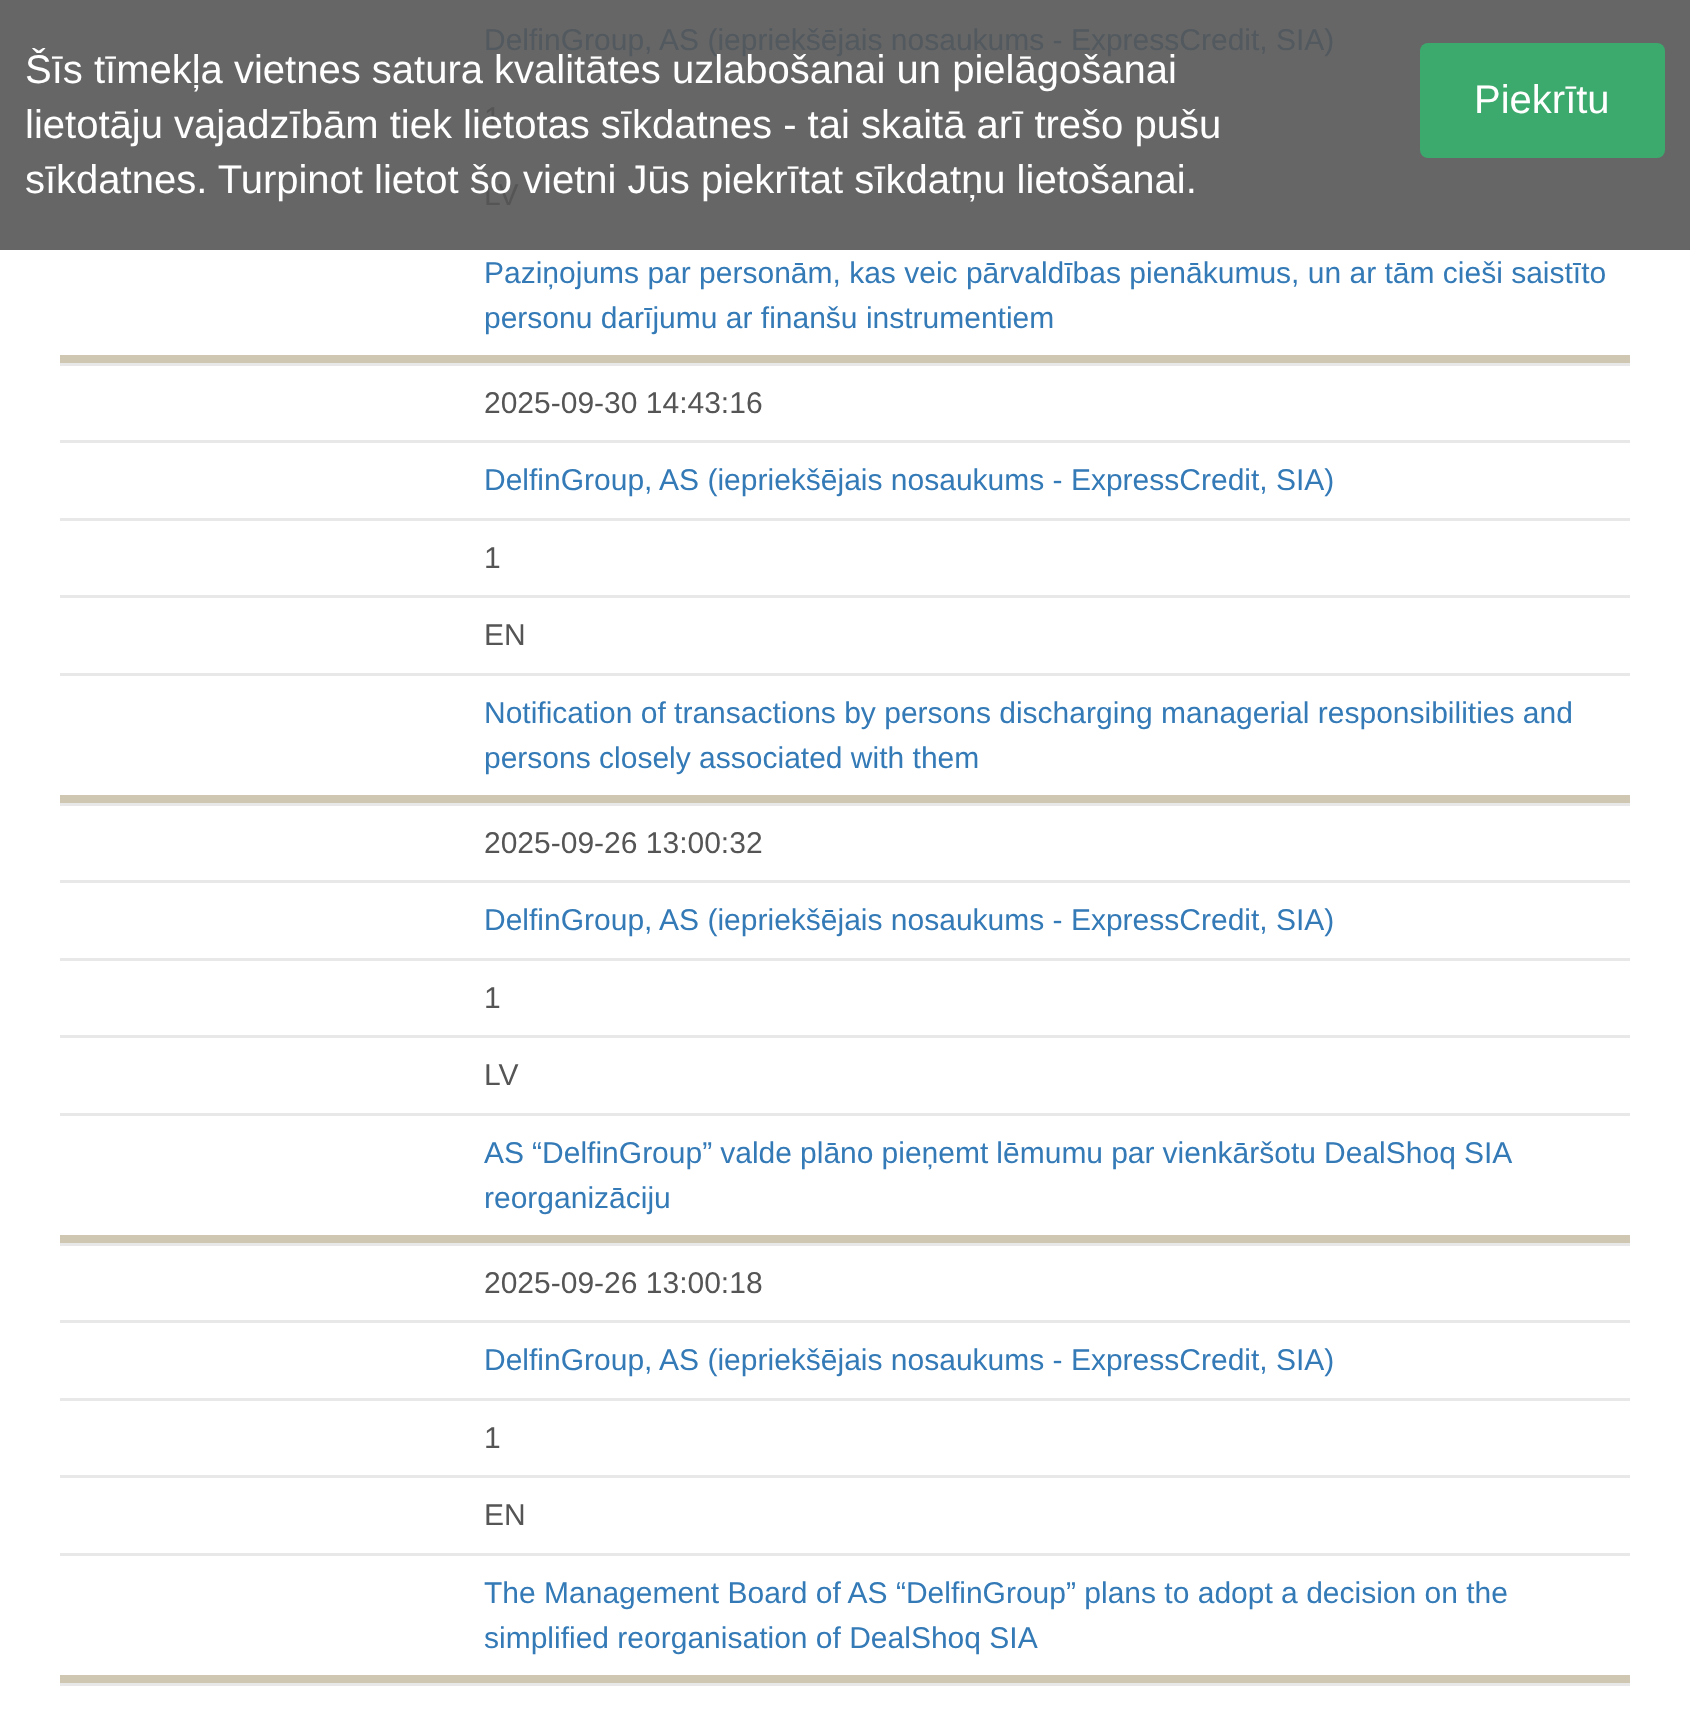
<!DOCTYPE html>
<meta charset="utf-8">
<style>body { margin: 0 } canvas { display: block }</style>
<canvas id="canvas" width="1690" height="1711"></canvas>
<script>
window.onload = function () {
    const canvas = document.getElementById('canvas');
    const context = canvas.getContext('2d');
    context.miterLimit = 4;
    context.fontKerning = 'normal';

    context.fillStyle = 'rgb(255, 255, 255)';
    context.fillRect(0, 0, 1690, 1711);
    context.fillStyle = 'rgb(102, 102, 102)';
    context.fillRect(0, 0, 1690, 250);
    context.fillStyle = 'rgb(208, 199, 179)';
    context.fillRect(60, 355, 1570, 8);
    context.fillStyle = 'rgb(232, 232, 232)';
    context.fillRect(60, 363, 1570, 3);
    context.fillRect(60, 440, 1570, 3);
    context.fillRect(60, 518, 1570, 3);
    context.fillRect(60, 595, 1570, 3);
    context.fillRect(60, 673, 1570, 3);
    context.fillStyle = 'rgb(208, 199, 179)';
    context.fillRect(60, 795, 1570, 8);
    context.fillStyle = 'rgb(232, 232, 232)';
    context.fillRect(60, 803, 1570, 3);
    context.fillRect(60, 880, 1570, 3);
    context.fillRect(60, 958, 1570, 3);
    context.fillRect(60, 1035, 1570, 3);
    context.fillRect(60, 1113, 1570, 3);
    context.fillStyle = 'rgb(208, 199, 179)';
    context.fillRect(60, 1235, 1570, 8);
    context.fillStyle = 'rgb(232, 232, 232)';
    context.fillRect(60, 1243, 1570, 3);
    context.fillRect(60, 1320, 1570, 3);
    context.fillRect(60, 1398, 1570, 3);
    context.fillRect(60, 1475, 1570, 3);
    context.fillRect(60, 1553, 1570, 3);
    context.fillStyle = 'rgb(208, 199, 179)';
    context.fillRect(60, 1675, 1570, 8);
    context.fillStyle = 'rgb(232, 232, 232)';
    context.fillRect(60, 1683, 1570, 3);
    context.fillStyle = 'rgb(61, 170, 109)';
    context.beginPath();
    context.roundRect(1420, 43, 245, 115, 8);
    context.fill();
    context.font = '30px Liberation Sans';
    context.fillStyle = 'rgb(82, 89, 95)';
    context.fillText('DelfinGroup, AS (iepriekšējais nosaukums - ExpressCredit, SIA)', 484, 50);
    context.fillStyle = 'rgb(85, 85, 85)';
    context.fillText('1', 484, 128);
    context.fillText('LV', 484, 205);
    context.fillStyle = 'rgb(51, 122, 183)';
    context.fillText('Paziņojums par personām, kas veic pārvaldības pienākumus, un ar tām cieši saistīto', 484, 283);
    context.fillText('personu darījumu ar finanšu instrumentiem', 484, 328);
    context.fillStyle = 'rgb(85, 85, 85)';
    context.fillText('2025-09-30 14:43:16', 484, 413);
    context.fillStyle = 'rgb(51, 122, 183)';
    context.fillText('DelfinGroup, AS (iepriekšējais nosaukums - ExpressCredit, SIA)', 484, 490);
    context.fillStyle = 'rgb(85, 85, 85)';
    context.fillText('1', 484, 568);
    context.fillText('EN', 484, 645);
    context.fillStyle = 'rgb(51, 122, 183)';
    context.fillText('Notification of transactions by persons discharging managerial responsibilities and', 484, 723);
    context.fillText('persons closely associated with them', 484, 768);
    context.fillStyle = 'rgb(85, 85, 85)';
    context.fillText('2025-09-26 13:00:32', 484, 853);
    context.fillStyle = 'rgb(51, 122, 183)';
    context.fillText('DelfinGroup, AS (iepriekšējais nosaukums - ExpressCredit, SIA)', 484, 930);
    context.fillStyle = 'rgb(85, 85, 85)';
    context.fillText('1', 484, 1008);
    context.fillText('LV', 484, 1085);
    context.wordSpacing = '-0.25px';
    context.fillStyle = 'rgb(51, 122, 183)';
    context.fillText('AS “DelfinGroup” valde plāno pieņemt lēmumu par vienkāršotu DealShoq SIA', 484, 1163);
    context.wordSpacing = '0px';
    context.fillText('reorganizāciju', 484, 1208);
    context.fillStyle = 'rgb(85, 85, 85)';
    context.fillText('2025-09-26 13:00:18', 484, 1293);
    context.fillStyle = 'rgb(51, 122, 183)';
    context.fillText('DelfinGroup, AS (iepriekšējais nosaukums - ExpressCredit, SIA)', 484, 1370);
    context.fillStyle = 'rgb(85, 85, 85)';
    context.fillText('1', 484, 1448);
    context.fillText('EN', 484, 1525);
    context.fillStyle = 'rgb(51, 122, 183)';
    context.fillText('The Management Board of AS “DelfinGroup” plans to adopt a decision on the', 484, 1603);
    context.fillText('simplified reorganisation of DealShoq SIA', 484, 1648);
    context.font = '40px Liberation Sans';
    context.fillStyle = 'rgb(255, 255, 255)';
    context.fillText('Šīs tīmekļa vietnes satura kvalitātes uzlabošanai un pielāgošanai', 25, 83);
    context.fillText('lietotāju vajadzībām tiek lietotas sīkdatnes - tai skaitā arī trešo pušu', 25, 138);
    context.fillText('sīkdatnes. Turpinot lietot šo vietni Jūs piekrītat sīkdatņu lietošanai.', 25, 193);
    context.fillText('Piekrītu', 1474, 113);
};
</script>
